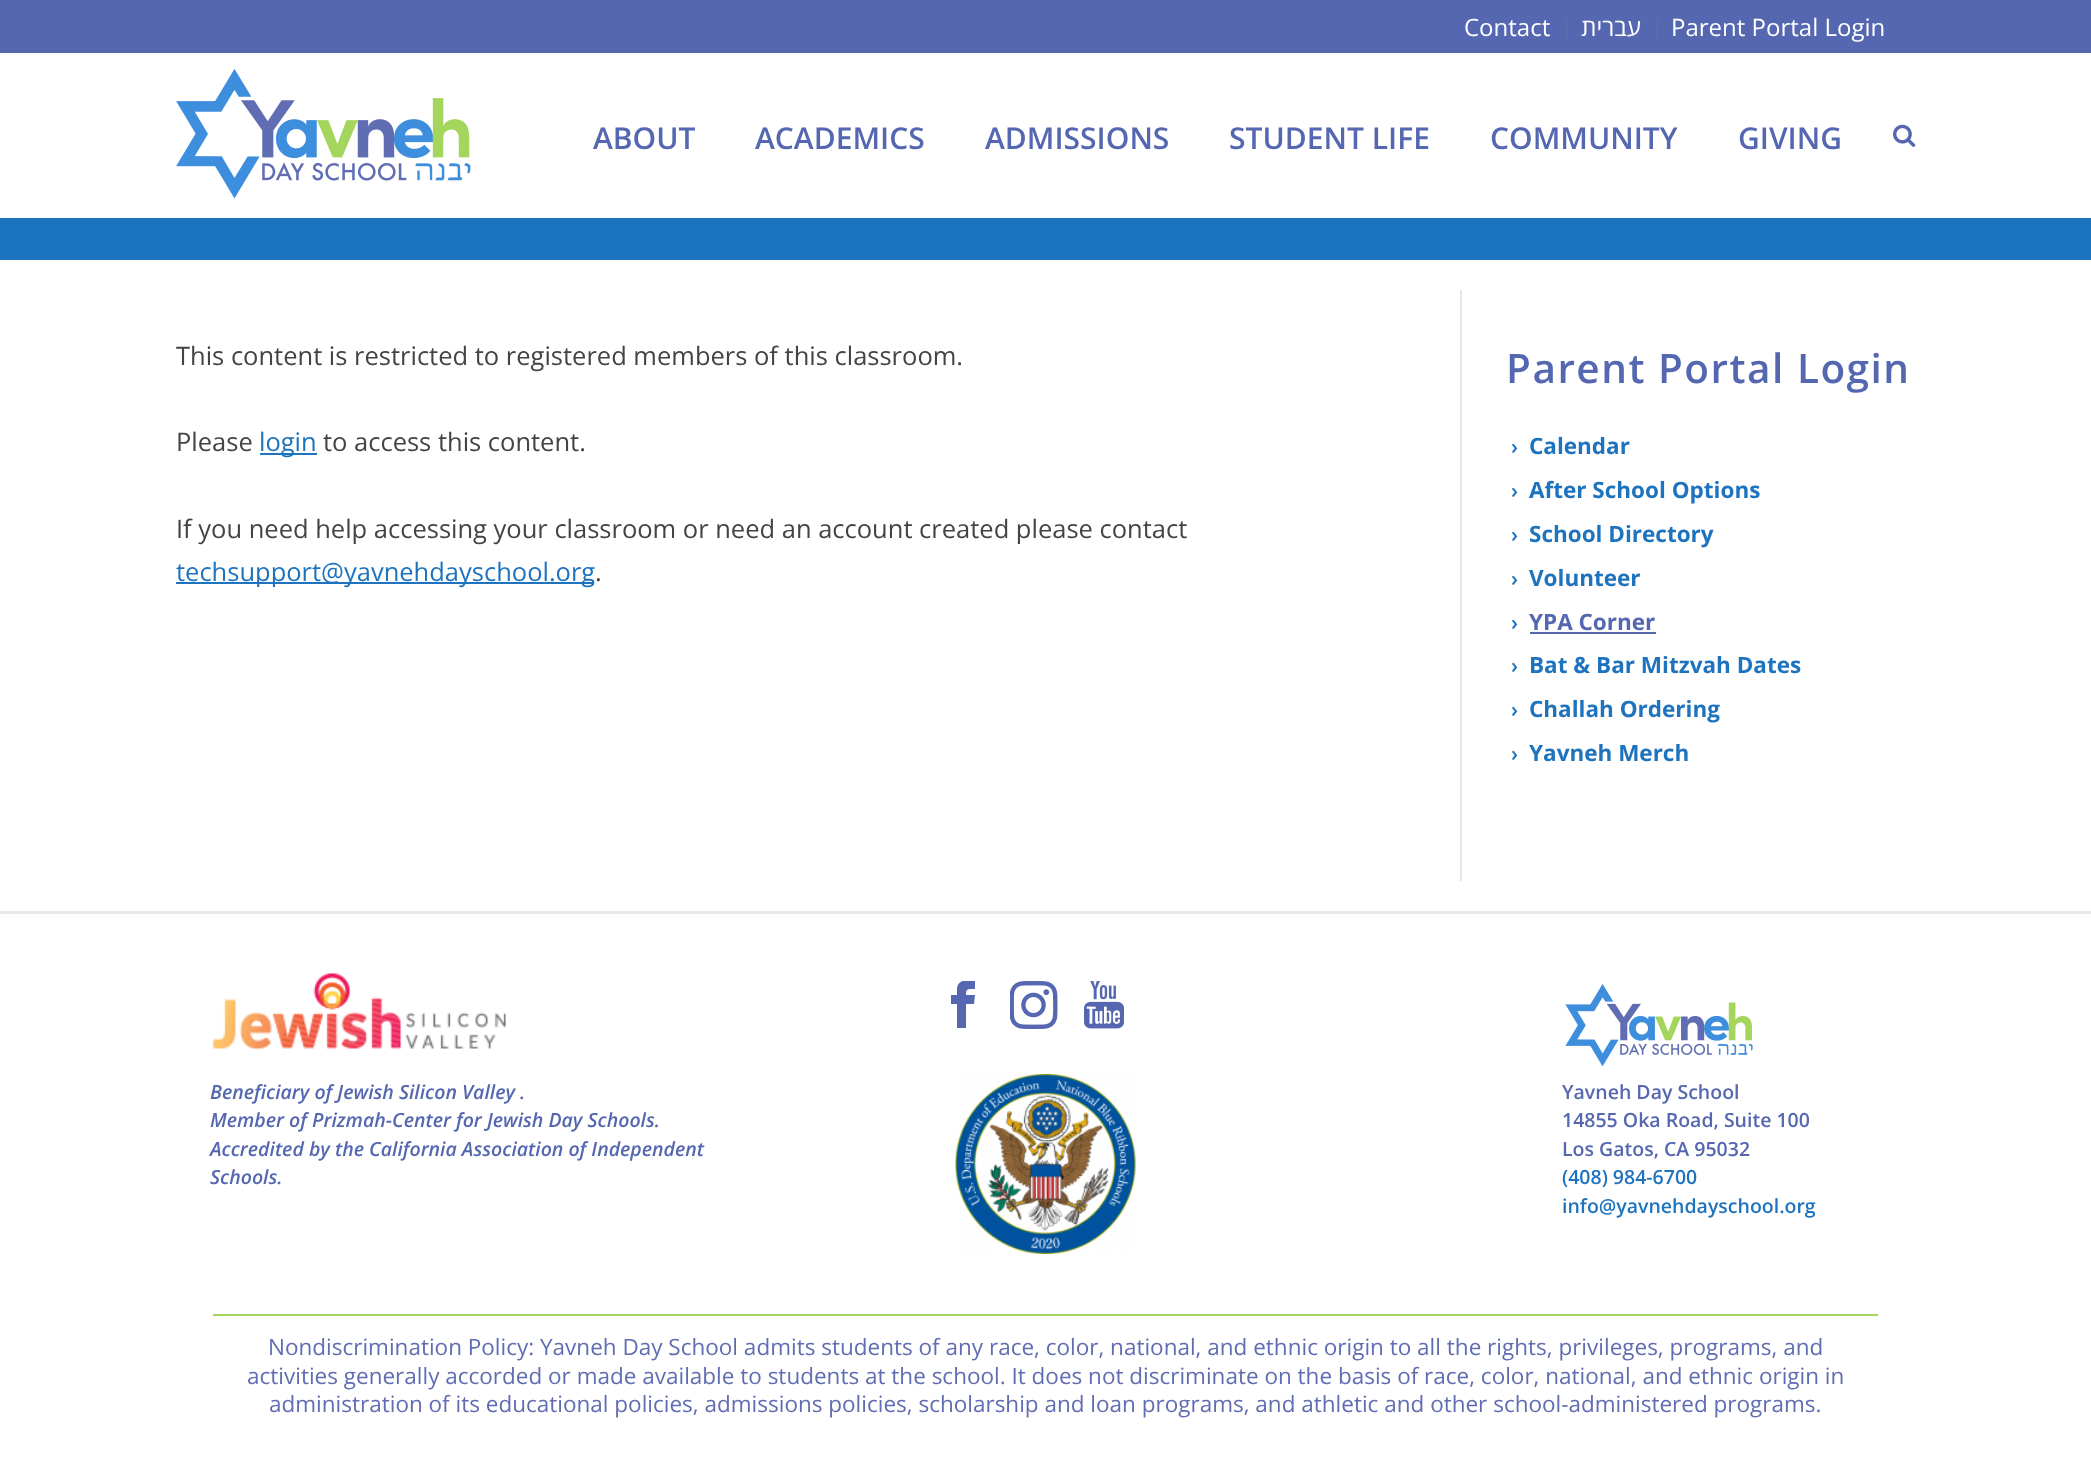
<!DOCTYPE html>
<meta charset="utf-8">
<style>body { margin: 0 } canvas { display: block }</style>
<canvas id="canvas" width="2091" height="1478"></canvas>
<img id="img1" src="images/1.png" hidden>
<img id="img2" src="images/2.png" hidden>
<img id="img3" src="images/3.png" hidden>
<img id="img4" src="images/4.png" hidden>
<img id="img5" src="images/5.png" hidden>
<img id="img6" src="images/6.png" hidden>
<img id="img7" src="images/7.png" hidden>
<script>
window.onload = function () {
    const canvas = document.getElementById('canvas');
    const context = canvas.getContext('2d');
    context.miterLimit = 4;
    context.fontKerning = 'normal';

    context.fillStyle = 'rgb(255, 255, 255)';
    context.fillRect(0, 0, 2091, 1478);
    context.fillStyle = 'rgb(28, 115, 190)';
    context.fillRect(0, 218, 2091, 42);
    context.fillStyle = 'rgb(84, 103, 176)';
    context.fillRect(0, 0, 2091, 53);
    context.fillStyle = 'rgb(93, 108, 166)';
    context.fillRect(1566, 20, 2, 18);
    context.fillRect(1656, 20, 2, 18);
    context.drawImage(document.getElementById('img1'), 176, 69, 295, 130);
    context.drawImage(document.getElementById('img2'), 1893, 124, 23, 23);
    context.fillStyle = 'rgb(232, 232, 232)';
    context.fillRect(0, 911, 2091, 3);
    context.fillStyle = 'rgb(30, 115, 190)';
    context.fillRect(260, 453, 57, 2);
    context.fillRect(176, 582, 418, 2);
    context.fillStyle = 'rgb(232, 232, 232)';
    context.fillRect(1460, 290, 2, 591);
    context.fillStyle = 'rgb(84, 103, 176)';
    context.fillRect(1530, 632, 126, 2);
    context.drawImage(document.getElementById('img3'), 212, 973, 294, 76);
    context.save();
    context.beginPath();
    context.rect(939, 981, 48, 48);
    context.clip();
    context.beginPath();
    context.moveTo(957, 990);
    context.lineTo(957, 995);
    context.lineTo(951, 995);
    context.lineTo(951, 1004);
    context.lineTo(957, 1004);
    context.lineTo(957, 1028);
    context.lineTo(966, 1028);
    context.lineTo(966, 1004);
    context.lineTo(974, 1004);
    context.lineTo(975, 995);
    context.lineTo(966, 995);
    context.bezierCurveTo(966, 988, 968, 989, 975, 989);
    context.lineTo(975, 980);
    context.bezierCurveTo(967, 980, 957, 979, 957, 990);
    context.closePath();
    context.fill();
    context.restore();
    context.drawImage(document.getElementById('img4'), 1010, 981, 48, 48);
    context.drawImage(document.getElementById('img5'), 1084, 981, 40, 48);
    context.drawImage(document.getElementById('img6'), 955, 1074, 181, 180);
    context.drawImage(document.getElementById('img7'), 1565, 984, 188, 83);
    context.fillStyle = 'rgb(164, 213, 93)';
    context.fillRect(213, 1314, 1665, 2);
    context.font = '24px Open Sans';
    context.fillStyle = 'rgb(255, 255, 255)';
    context.fillText('Contact', 1464, 36);
    context.direction = 'rtl';
    context.fillText('עברית', 1641, 36);
    context.direction = 'ltr';
    context.fillText('Parent Portal Login', 1671, 36);
    context.font = '600 30px Open Sans';
    context.fillStyle = 'rgb(84, 103, 176)';
    context.fillText('ABOUT', 593, 149);
    context.fillText('ACADEMICS', 755, 149);
    context.fillText('ADMISSIONS', 985, 149);
    context.fillText('STUDENT LIFE', 1229, 149);
    context.fillText('COMMUNITY', 1490, 149);
    context.fillText('GIVING', 1738, 149);
    context.font = '25.5px Open Sans';
    context.fillStyle = 'rgb(68, 68, 68)';
    context.fillText('This content is restricted to registered members of this classroom.', 176, 365);
    context.fillText('Please', 176, 451);
    context.fillStyle = 'rgb(30, 115, 190)';
    context.fillText('login', 259, 451);
    context.fillStyle = 'rgb(68, 68, 68)';
    context.fillText('to access this content.', 323, 451);
    context.fillText('If you need help accessing your classroom or need an account created please contact', 176, 538);
    context.fillStyle = 'rgb(30, 115, 190)';
    context.fillText('techsupport@yavnehdayschool.org', 176, 581);
    context.fillStyle = 'rgb(68, 68, 68)';
    context.fillText('.', 595, 581);
    context.letterSpacing = '1.5px';
    context.font = '600 40.5px Open Sans';
    context.fillStyle = 'rgb(84, 103, 176)';
    context.fillText('Parent Portal Login', 1506, 383);
    context.letterSpacing = '0px';
    context.font = '600 21px Open Sans';
    context.fillStyle = 'rgb(30, 115, 190)';
    context.fillText('›', 1511, 454);
    context.font = 'bold 22.5px Open Sans';
    context.fillText('Calendar', 1529, 454);
    context.font = '600 21px Open Sans';
    context.fillText('›', 1511, 498);
    context.font = 'bold 22.5px Open Sans';
    context.fillText('After School Options', 1529, 498);
    context.font = '600 21px Open Sans';
    context.fillText('›', 1511, 542);
    context.font = 'bold 22.5px Open Sans';
    context.fillText('School Directory', 1529, 542);
    context.font = '600 21px Open Sans';
    context.fillText('›', 1511, 586);
    context.font = 'bold 22.5px Open Sans';
    context.fillText('Volunteer', 1529, 586);
    context.font = '600 21px Open Sans';
    context.fillText('›', 1511, 630);
    context.font = 'bold 22.5px Open Sans';
    context.fillStyle = 'rgb(84, 103, 176)';
    context.fillText('YPA Corner', 1529, 630);
    context.font = '600 21px Open Sans';
    context.fillStyle = 'rgb(30, 115, 190)';
    context.fillText('›', 1511, 673);
    context.font = 'bold 22.5px Open Sans';
    context.fillText('Bat & Bar Mitzvah Dates', 1529, 673);
    context.font = '600 21px Open Sans';
    context.fillText('›', 1511, 717);
    context.font = 'bold 22.5px Open Sans';
    context.fillText('Challah Ordering', 1529, 717);
    context.font = '600 21px Open Sans';
    context.fillText('›', 1511, 761);
    context.font = 'bold 22.5px Open Sans';
    context.fillText('Yavneh Merch', 1529, 761);
    context.font = 'italic 600 19.5px Open Sans';
    context.fillStyle = 'rgb(84, 103, 176)';
    context.fillText('Beneficiary of Jewish Silicon Valley .', 210, 1099);
    context.fillText('Member of Prizmah-Center for Jewish Day Schools.', 210, 1127);
    context.fillText('Accredited by the California Association of Independent', 210, 1156);
    context.fillText('Schools.', 210, 1184);
    context.font = '600 19.5px Open Sans';
    context.fillText('Yavneh Day School', 1562, 1099);
    context.fillText('14855 Oka Road, Suite 100', 1562, 1127);
    context.fillText('Los Gatos, CA 95032', 1562, 1156);
    context.fillStyle = 'rgb(30, 115, 190)';
    context.fillText('(408) 984-6700', 1562, 1184);
    context.fillText('info@yavnehdayschool.org', 1562, 1213);
    context.font = '22.5px Open Sans';
    context.fillStyle = 'rgb(97, 109, 178)';
    context.fillText('Nondiscrimination Policy: Yavneh Day School admits students of any race, color, national, and ethnic origin to all the rights, privileges, programs, and', 268, 1355);
    context.fillText('activities generally accorded or made available to students at the school. It does not discriminate on the basis of race, color, national, and ethnic origin in', 247, 1384);
    context.fillText('administration of its educational policies, admissions policies, scholarship and loan programs, and athletic and other school-administered programs.', 269, 1412);
};
</script>
